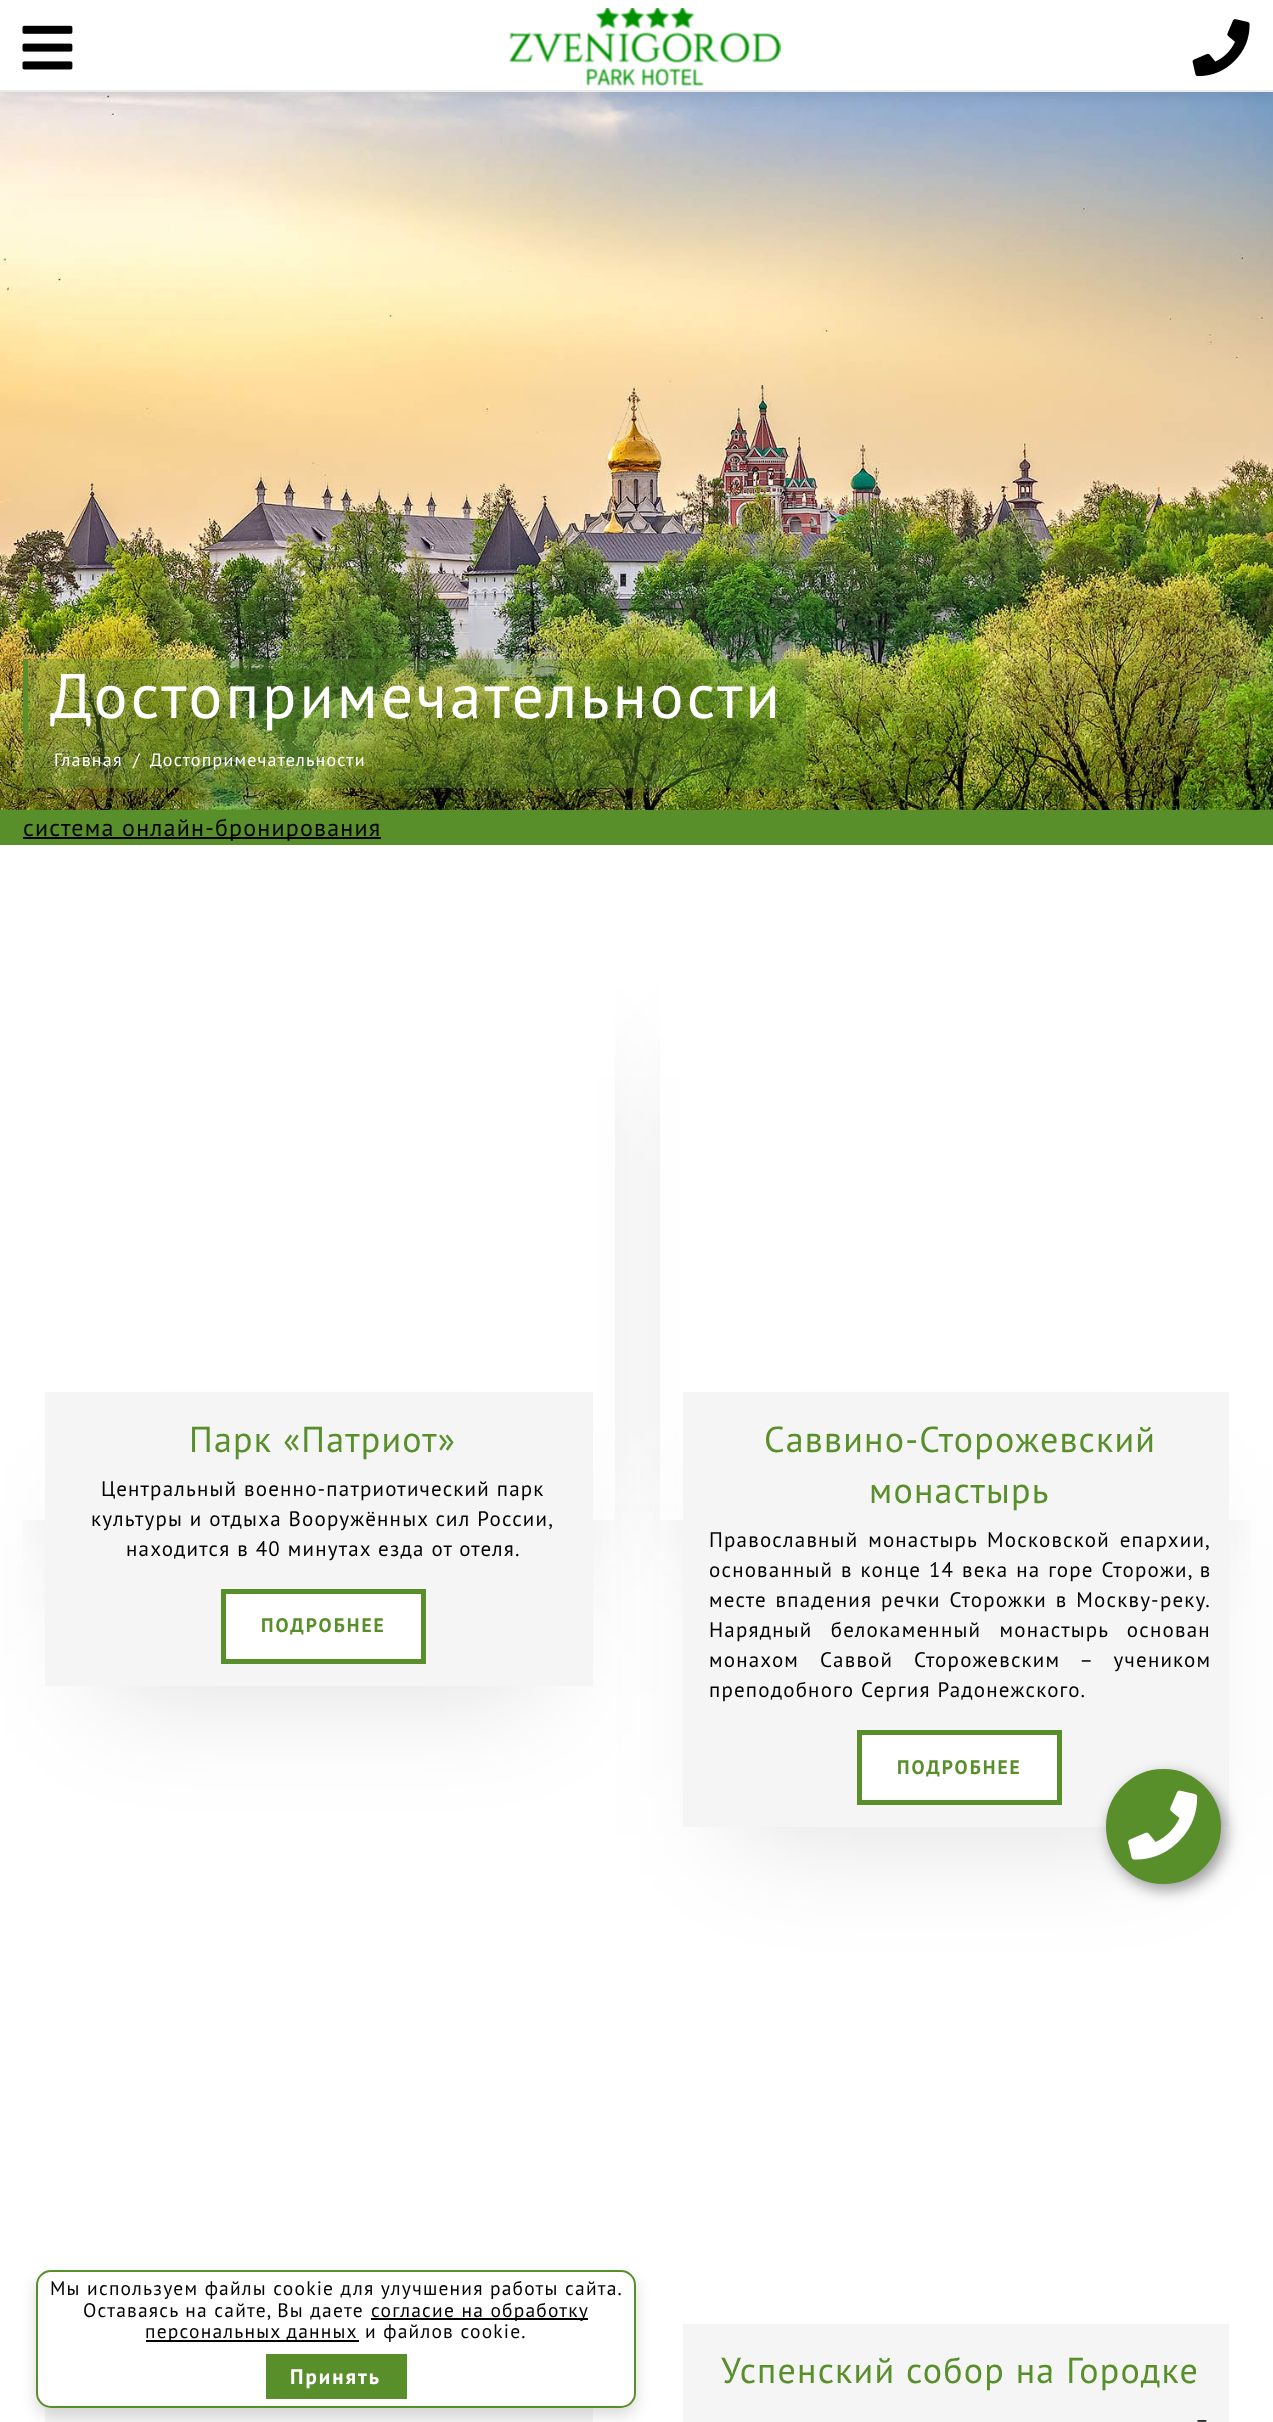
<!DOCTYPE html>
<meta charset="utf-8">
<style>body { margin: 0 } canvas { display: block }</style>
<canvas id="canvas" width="1273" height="2422"></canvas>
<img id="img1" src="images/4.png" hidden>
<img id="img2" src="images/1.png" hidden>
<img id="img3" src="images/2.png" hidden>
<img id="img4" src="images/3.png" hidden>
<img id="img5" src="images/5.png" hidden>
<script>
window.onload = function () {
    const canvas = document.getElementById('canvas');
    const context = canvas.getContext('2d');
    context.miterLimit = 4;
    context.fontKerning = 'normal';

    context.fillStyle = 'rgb(255, 255, 255)';
    context.fillRect(0, 0, 1273, 2422);
    context.drawImage(document.getElementById('img1'), 0, 92, 1273, 718);
    context.fillStyle = 'rgba(0, 0, 0, 0.1)';
    context.filter = 'blur(7.5px)';
    context.beginPath();
    context.rect(-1, 2, 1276, 94);
    context.fill();
    context.filter = 'none';
    context.fillStyle = 'rgb(255, 255, 255)';
    context.fillRect(0, 0, 1273, 90);
    context.fillStyle = 'rgb(235, 235, 235)';
    context.fillRect(0, 90, 1273, 2);
    context.drawImage(document.getElementById('img2'), 22, 25, 51, 45);
    context.drawImage(document.getElementById('img3'), 509, 8, 272, 78);
    context.drawImage(document.getElementById('img4'), 1192, 19, 58, 58);
    context.fillStyle = 'rgba(89, 143, 43, 0.38)';
    context.fillRect(28, 659, 778, 73);
    context.fillStyle = 'rgb(89, 143, 43)';
    context.fillRect(23, 659, 5, 73);
    context.fillStyle = 'rgba(89, 143, 43, 0.38)';
    context.fillRect(23, 732, 783, 56);
    context.fillStyle = 'rgb(89, 143, 43)';
    context.fillRect(0, 810, 1273, 35);
    context.fillStyle = 'rgb(0, 0, 0)';
    context.fillRect(23, 837, 358, 2);
    context.save();
    context.beginPath();
    context.rect(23, 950, 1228, 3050);
    context.clip();
    context.beginPath();
    context.moveTo(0, 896);
    context.lineTo(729, 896);
    context.lineTo(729, 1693);
    context.lineTo(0, 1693);
    context.closePath();
    context.moveTo(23, 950);
    context.lineTo(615, 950);
    context.lineTo(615, 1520);
    context.lineTo(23, 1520);
    context.closePath();
    context.clip('evenodd');
    context.fillStyle = 'rgba(0, 0, 0, 0.3)';
    context.filter = 'blur(60px)';
    context.beginPath();
    context.rect(90, 1077, 458, 435);
    context.fill();
    context.filter = 'none';
    context.restore();
    context.fillStyle = 'rgba(0, 0, 0, 0.12)';
    context.filter = 'blur(60px)';
    context.beginPath();
    context.rect(98, 1505, 442, 189);
    context.fill();
    context.filter = 'none';
    context.save();
    context.beginPath();
    context.rect(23, 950, 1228, 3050);
    context.clip();
    context.beginPath();
    context.moveTo(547, 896);
    context.lineTo(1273, 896);
    context.lineTo(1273, 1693);
    context.lineTo(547, 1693);
    context.closePath();
    context.moveTo(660, 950);
    context.lineTo(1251, 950);
    context.lineTo(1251, 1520);
    context.lineTo(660, 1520);
    context.closePath();
    context.clip('evenodd');
    context.fillStyle = 'rgba(0, 0, 0, 0.3)';
    context.filter = 'blur(60px)';
    context.beginPath();
    context.rect(728, 1077, 456, 435);
    context.fill();
    context.filter = 'none';
    context.restore();
    context.fillStyle = 'rgb(245, 245, 245)';
    context.fillRect(45, 1392, 548, 294);
    context.fillStyle = 'rgb(255, 255, 255)';
    context.beginPath();
    context.rect(223.5, 1591.5, 200, 70);
    context.fill();
    context.strokeStyle = 'rgb(89, 143, 43)';
    context.lineWidth = 5;
    context.stroke();
    context.fillStyle = 'rgba(0, 0, 0, 0.12)';
    context.filter = 'blur(60px)';
    context.beginPath();
    context.rect(735, 1505, 441, 330);
    context.fill();
    context.filter = 'none';
    context.fillStyle = 'rgb(245, 245, 245)';
    context.fillRect(683, 1392, 546, 435);
    context.fillStyle = 'rgb(255, 255, 255)';
    context.beginPath();
    context.rect(859.5, 1732.5, 200, 70);
    context.fill();
    context.stroke();
    context.fillStyle = 'rgb(245, 245, 245)';
    context.fillRect(45, 2406, 548, 16);
    context.fillRect(683, 2324, 546, 98);
    context.fillStyle = 'rgba(0, 0, 0, 0.39)';
    context.filter = 'blur(7.5px)';
    context.beginPath();
    context.roundRect(1110, 1775, 116, 115, 57.5);
    context.fill();
    context.filter = 'none';
    context.fillStyle = 'rgb(89, 143, 43)';
    context.beginPath();
    context.arc(1163.5, 1826.5, 56, 0, 2 * Math.PI);
    context.fill();
    context.lineWidth = 3;
    context.stroke();
    context.drawImage(document.getElementById('img5'), 1128, 1790, 70, 70);
    context.fillStyle = 'rgba(0, 0, 0, 0.15)';
    context.filter = 'blur(7.5px)';
    context.beginPath();
    context.roundRect(36, 2277, 600, 138, 15);
    context.fill();
    context.filter = 'none';
    context.fillStyle = 'rgb(255, 255, 255)';
    context.beginPath();
    context.roundRect(37, 2271, 598, 136, 14);
    context.fill();
    context.lineWidth = 2;
    context.stroke();
    context.fillStyle = 'rgb(0, 0, 0)';
    context.fillRect(371, 2318, 217, 2);
    context.fillRect(146, 2340, 213, 2);
    context.fillStyle = 'rgb(89, 143, 43)';
    context.fillRect(266, 2354, 141, 45);
    context.letterSpacing = '3.15px';
    context.font = '63px PT Sans';
    context.fillStyle = 'rgb(255, 255, 255)';
    context.fillText('Достопримечательности', 50, 718);
    context.letterSpacing = '1.2px';
    context.font = '18px PT Sans';
    context.fillText('Главная', 54, 766);
    context.fillText('/', 133, 766);
    context.fillText('Достопримечательности', 150, 766);
    context.font = '24px PT Sans';
    context.fillStyle = 'rgb(0, 0, 0)';
    context.fillText('система онлайн-бронирования', 23, 836);
    context.font = '36px PT Sans';
    context.fillStyle = 'rgb(89, 143, 43)';
    context.fillText('Парк «Патриот»', 189, 1452);
    context.font = '21px PT Sans';
    context.fillStyle = 'rgb(0, 0, 0)';
    context.fillText('Центральный военно-патриотический парк', 101, 1496);
    context.fillText('культуры и отдыха Вооружённых сил России,', 91, 1526);
    context.fillText('находится в 40 минутах езда от отеля.', 126, 1556);
    context.letterSpacing = '2px';
    context.font = 'bold 19.5px PT Sans';
    context.fillStyle = 'rgb(89, 143, 43)';
    context.fillText('ПОДРОБНЕЕ', 261, 1632);
    context.letterSpacing = '1.2px';
    context.font = '36px PT Sans';
    context.fillText('Саввино-Сторожевский', 764, 1452);
    context.fillText('монастырь', 869, 1503);
    context.wordSpacing = '3px';
    context.font = '21px PT Sans';
    context.fillStyle = 'rgb(0, 0, 0)';
    context.fillText('Православный монастырь Московской епархии,', 709, 1547);
    context.wordSpacing = '1px';
    context.fillText('основанный в конце 14 века на горе Сторожи, в', 709, 1577);
    context.wordSpacing = '2px';
    context.fillText('месте впадения речки Сторожки в Москву-реку.', 709, 1607);
    context.wordSpacing = '11.5px';
    context.fillText('Нарядный белокаменный монастырь основан', 709, 1637);
    context.wordSpacing = '14px';
    context.fillText('монахом Саввой Сторожевским – учеником', 709, 1667);
    context.wordSpacing = '0px';
    context.fillText('преподобного Сергия Радонежского.', 709, 1697);
    context.letterSpacing = '2px';
    context.font = 'bold 19.5px PT Sans';
    context.fillStyle = 'rgb(89, 143, 43)';
    context.fillText('ПОДРОБНЕЕ', 897, 1774);
    context.letterSpacing = '1.2px';
    context.font = '36px PT Sans';
    context.fillText('Успенский собор на Городке', 721, 2383);
    context.wordSpacing = '3px';
    context.font = '21px PT Sans';
    context.fillStyle = 'rgb(0, 0, 0)';
    context.fillText('–', 1195, 2427);
    context.wordSpacing = '0px';
    context.font = '19.5px PT Sans';
    context.fillText('Мы используем файлы cookie для улучшения работы сайта.', 50, 2295);
    context.fillText('Оставаясь на сайте, Вы даете', 83, 2317);
    context.fillText('согласие на обработку', 371, 2317);
    context.wordSpacing = '-1px';
    context.fillText('персональных данных', 145, 2338);
    context.wordSpacing = '0px';
    context.fillText('и файлов cookie.', 365, 2338);
    context.letterSpacing = '2px';
    context.font = 'bold 21px PT Sans';
    context.fillStyle = 'rgb(255, 255, 255)';
    context.fillText('Принять', 290, 2384);
};
</script>
